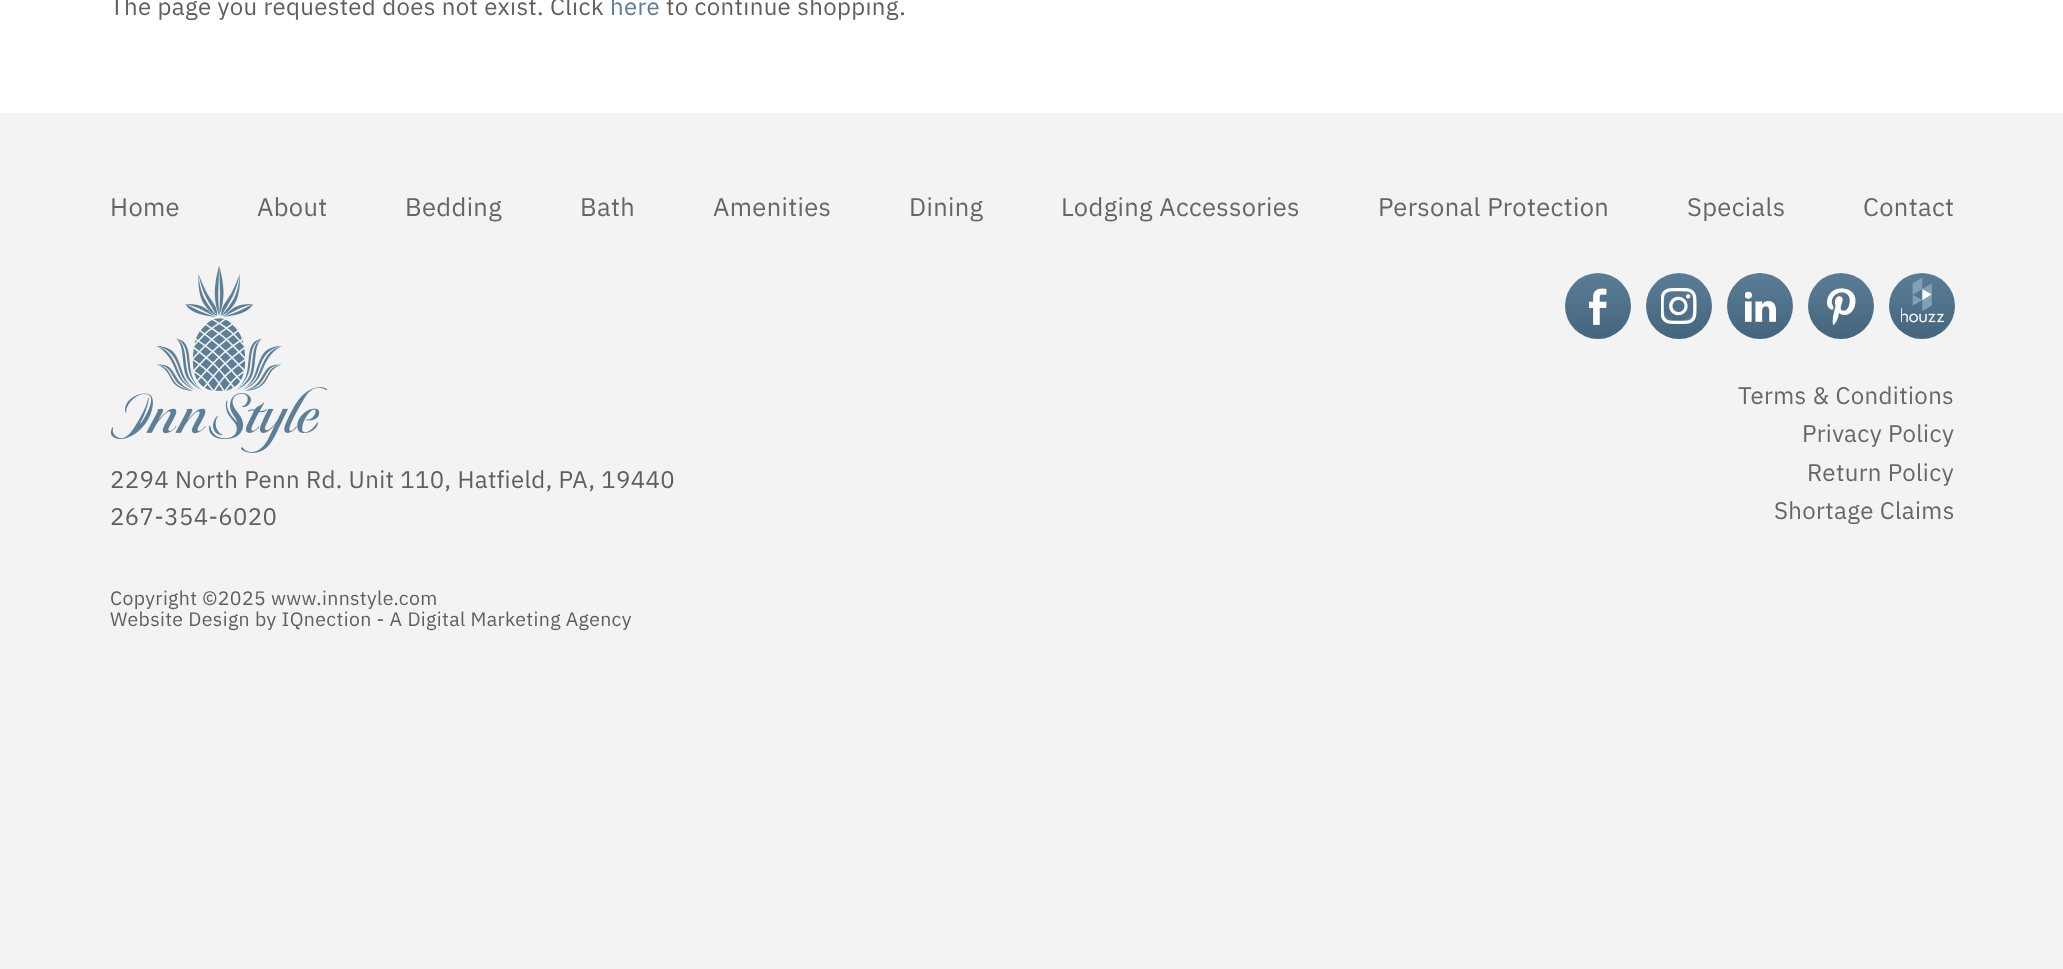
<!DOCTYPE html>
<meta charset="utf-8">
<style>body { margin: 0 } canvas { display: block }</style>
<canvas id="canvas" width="2063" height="969"></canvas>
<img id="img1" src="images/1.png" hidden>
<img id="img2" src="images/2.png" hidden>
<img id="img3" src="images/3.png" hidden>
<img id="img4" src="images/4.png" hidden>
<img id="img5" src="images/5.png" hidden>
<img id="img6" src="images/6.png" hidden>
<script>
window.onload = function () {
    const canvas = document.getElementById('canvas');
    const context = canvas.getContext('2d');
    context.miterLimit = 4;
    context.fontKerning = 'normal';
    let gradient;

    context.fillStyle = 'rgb(243, 243, 243)';
    context.fillRect(0, 0, 2063, 969);
    context.fillStyle = 'rgb(255, 255, 255)';
    context.fillRect(0, 0, 2063, 113);
    gradient = context.createLinearGradient(1598, 273, 1598, 339);
    gradient.addColorStop(0, 'rgb(90, 125, 149)');
    gradient.addColorStop(1, 'rgb(69, 101, 127)');
    context.fillStyle = gradient;
    context.beginPath();
    context.arc(1598, 306, 33, 0, 2 * Math.PI);
    context.fill();
    context.drawImage(document.getElementById('img1'), 1589, 288, 18, 37);
    gradient = context.createLinearGradient(1679, 273, 1679, 339);
    gradient.addColorStop(0, 'rgb(90, 125, 149)');
    gradient.addColorStop(1, 'rgb(69, 101, 127)');
    context.fillStyle = gradient;
    context.beginPath();
    context.arc(1679, 306, 33, 0, 2 * Math.PI);
    context.fill();
    context.drawImage(document.getElementById('img2'), 1661, 288, 36, 36);
    gradient = context.createLinearGradient(1760, 273, 1760, 339);
    gradient.addColorStop(0, 'rgb(90, 125, 149)');
    gradient.addColorStop(1, 'rgb(69, 101, 127)');
    context.fillStyle = gradient;
    context.beginPath();
    context.arc(1760, 306, 33, 0, 2 * Math.PI);
    context.fill();
    context.drawImage(document.getElementById('img3'), 1745, 291, 31, 31);
    gradient = context.createLinearGradient(1841, 273, 1841, 339);
    gradient.addColorStop(0, 'rgb(90, 125, 149)');
    gradient.addColorStop(1, 'rgb(69, 101, 127)');
    context.fillStyle = gradient;
    context.beginPath();
    context.arc(1841, 306, 33, 0, 2 * Math.PI);
    context.fill();
    context.drawImage(document.getElementById('img4'), 1827, 288, 29, 37);
    gradient = context.createLinearGradient(1922, 273, 1922, 339);
    gradient.addColorStop(0, 'rgb(90, 125, 149)');
    gradient.addColorStop(1, 'rgb(69, 101, 127)');
    context.fillStyle = gradient;
    context.beginPath();
    context.arc(1922, 306, 33, 0, 2 * Math.PI);
    context.fill();
    context.drawImage(document.getElementById('img5'), 1901, 278, 43, 45);
    context.drawImage(document.getElementById('img6'), 110, 266, 218, 187);
    context.letterSpacing = '0.35px';
    context.font = '24px IBM Plex Sans';
    context.fillStyle = 'rgb(95, 96, 91)';
    context.fillText('The page you requested does not exist. Click', 110, 15);
    context.fillStyle = 'rgb(91, 126, 150)';
    context.fillText('here', 610, 15);
    context.fillStyle = 'rgb(95, 96, 91)';
    context.fillText('to continue shopping.', 666, 15);
    context.font = '25.5px IBM Plex Sans';
    context.fillStyle = 'rgb(102, 102, 102)';
    context.fillText('Home', 110, 216);
    context.fillText('About', 257, 216);
    context.fillText('Bedding', 405, 216);
    context.fillText('Bath', 580, 216);
    context.fillText('Amenities', 713, 216);
    context.fillText('Dining', 909, 216);
    context.fillText('Lodging Accessories', 1061, 216);
    context.fillText('Personal Protection', 1378, 216);
    context.fillText('Specials', 1687, 216);
    context.fillText('Contact', 1863, 216);
    context.font = '24px IBM Plex Sans';
    context.fillStyle = 'rgb(95, 96, 91)';
    context.fillText('2294 North Penn Rd. Unit 110, Hatfield, PA, 19440', 110, 488);
    context.fillText('267-354-6020', 110, 525);
    context.fillStyle = 'rgb(102, 102, 102)';
    context.fillText('Terms & Conditions', 1738, 404);
    context.fillText('Privacy Policy', 1802, 442);
    context.fillText('Return Policy', 1807, 481);
    context.fillText('Shortage Claims', 1774, 519);
    context.font = '19.5px IBM Plex Sans';
    context.fillStyle = 'rgb(95, 96, 91)';
    context.fillText('Copyright ©2025 www.innstyle.com', 110, 605);
    context.fillText('Website Design by IQnection - A Digital Marketing Agency', 110, 626);
};
</script>
